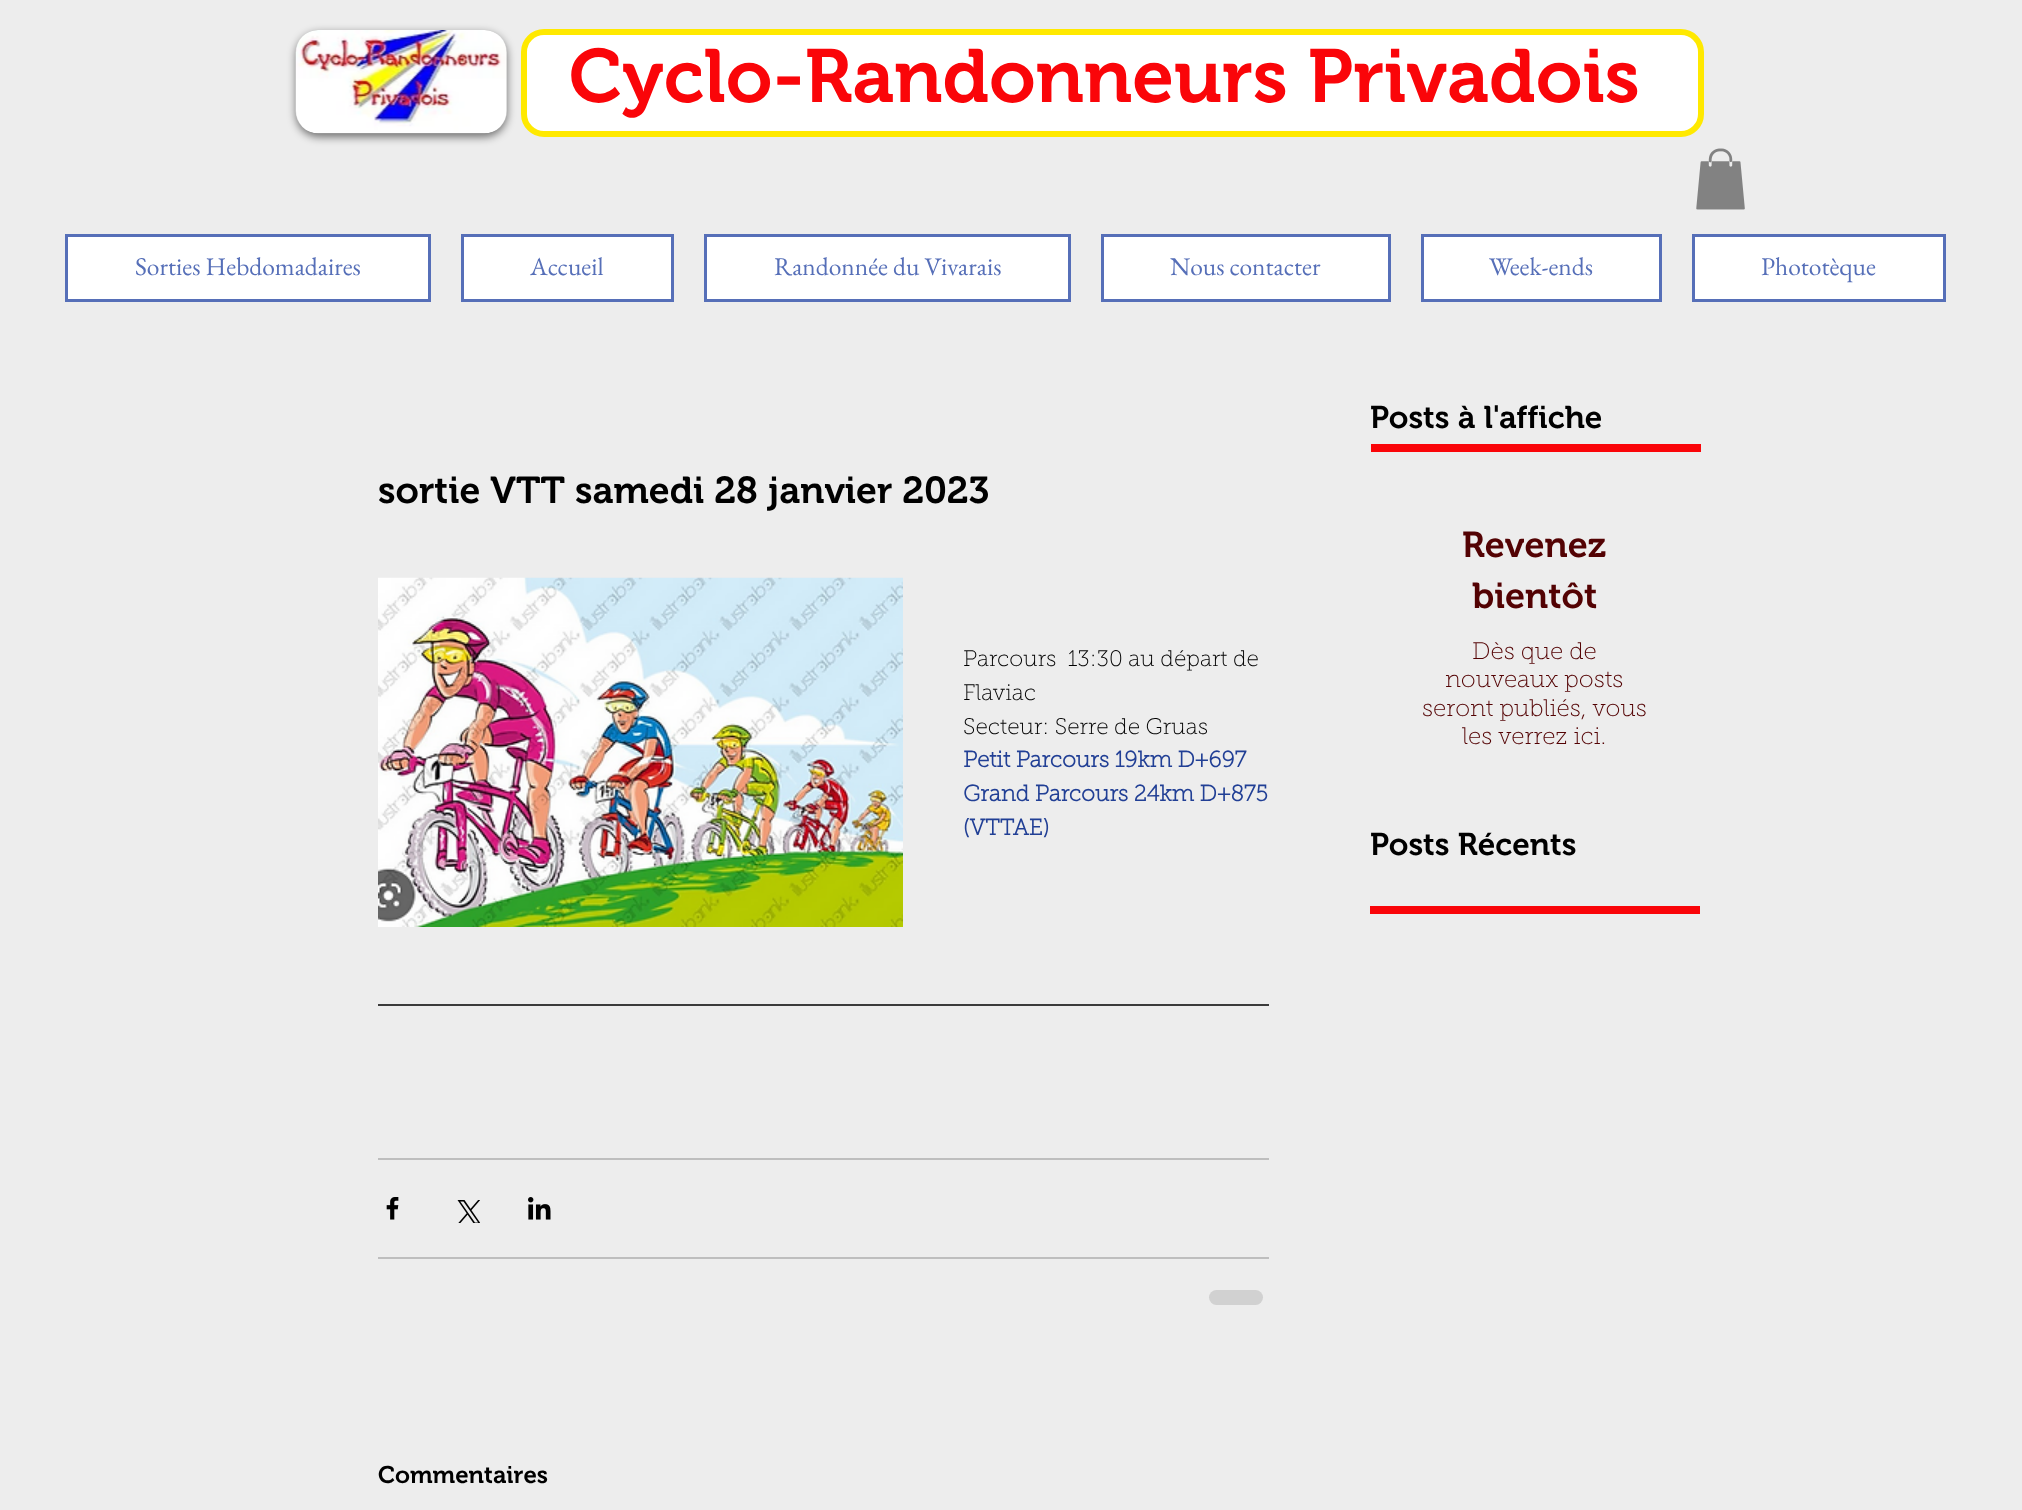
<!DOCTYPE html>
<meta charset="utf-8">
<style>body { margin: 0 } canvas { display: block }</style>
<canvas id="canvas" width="2022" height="1510"></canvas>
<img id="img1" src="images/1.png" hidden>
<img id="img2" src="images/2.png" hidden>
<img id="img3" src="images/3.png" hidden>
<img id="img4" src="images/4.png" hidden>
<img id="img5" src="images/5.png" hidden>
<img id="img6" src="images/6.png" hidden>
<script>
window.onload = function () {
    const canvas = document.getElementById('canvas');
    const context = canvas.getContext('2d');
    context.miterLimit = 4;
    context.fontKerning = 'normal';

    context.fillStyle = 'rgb(237, 237, 237)';
    context.fillRect(0, 0, 2022, 1510);
    context.fillStyle = 'rgba(0, 0, 0, 0.53)';
    context.filter = 'blur(4px)';
    context.beginPath();
    context.roundRect(296, 33, 211, 104, 23);
    context.fill();
    context.filter = 'none';
    context.drawImage(document.getElementById('img1'), 295, 30, 212, 104);
    context.fillStyle = 'rgb(255, 255, 255)';
    context.beginPath();
    context.roundRect(524, 32, 1177, 102, 20);
    context.fill();
    context.strokeStyle = 'rgb(255, 233, 0)';
    context.lineWidth = 6;
    context.stroke();
    context.drawImage(document.getElementById('img2'), 1696, 148, 49, 62);
    context.beginPath();
    context.rect(66.5, 235.5, 363, 65);
    context.fill();
    context.strokeStyle = 'rgb(86, 111, 184)';
    context.lineWidth = 3;
    context.stroke();
    context.beginPath();
    context.rect(462.5, 235.5, 210, 65);
    context.fill();
    context.stroke();
    context.beginPath();
    context.rect(705.5, 235.5, 364, 65);
    context.fill();
    context.stroke();
    context.beginPath();
    context.rect(1102.5, 235.5, 287, 65);
    context.fill();
    context.stroke();
    context.beginPath();
    context.rect(1422.5, 235.5, 238, 65);
    context.fill();
    context.stroke();
    context.beginPath();
    context.rect(1693.5, 235.5, 251, 65);
    context.fill();
    context.stroke();
    context.fillStyle = 'rgb(250, 5, 9)';
    context.fillRect(1371, 444, 330, 8);
    context.drawImage(document.getElementById('img3'), 378, 577, 525, 350);
    context.fillStyle = 'rgb(59, 59, 59)';
    context.fillRect(378, 1004, 891, 2);
    context.fillStyle = 'rgb(190, 190, 190)';
    context.fillRect(378, 1158, 891, 2);
    context.drawImage(document.getElementById('img4'), 386, 1197, 13, 23);
    context.drawImage(document.getElementById('img5'), 457, 1200, 23, 23);
    context.drawImage(document.getElementById('img6'), 528, 1197, 23, 23);
    context.fillRect(378, 1257, 891, 2);
    context.fillStyle = 'rgb(209, 209, 209)';
    context.beginPath();
    context.roundRect(1209, 1290, 54, 15, 7.5);
    context.fill();
    context.fillStyle = 'rgb(250, 5, 9)';
    context.fillRect(1370, 906, 330, 8);
    context.font = '600 75px "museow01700"';
    context.fillText('Cyclo-Randonneurs Privadois', 569, 102);
    context.font = '25.5px EB Garamond';
    context.fillStyle = 'rgb(86, 111, 184)';
    context.fillText('Sorties Hebdomadaires', 135, 275);
    context.fillText('Accueil', 530, 275);
    context.fillText('Randonnée du Vivarais', 774, 275);
    context.fillText('Nous contacter', 1170, 275);
    context.fillText('Week-ends', 1489, 275);
    context.fillText('Phototèque', 1761, 275);
    context.font = '600 31.5px "museow01700"';
    context.fillStyle = 'rgb(0, 0, 0)';
    context.fillText('Posts à l\'affiche', 1370, 428);
    context.font = '600 37.5px "museow01700"';
    context.fillText('sortie VTT samedi 28 janvier 2023', 378, 503);
    context.font = '100 22.5px "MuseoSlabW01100"';
    context.fillText('Parcours  13:30 au départ de', 963, 666);
    context.fillText('Flaviac', 963, 700);
    context.fillText('Secteur: Serre de Gruas', 963, 734);
    context.font = 'bold 22.5px "MuseoSlabW01100"';
    context.fillStyle = 'rgb(33, 63, 149)';
    context.fillText('Petit Parcours 19km D+697', 963, 767);
    context.fillText('Grand Parcours 24km D+875', 963, 801);
    context.fillText('(VTTAE)', 963, 835);
    context.font = '600 24px "museow01700"';
    context.fillStyle = 'rgb(0, 0, 0)';
    context.fillText('Commentaires', 378, 1483);
    context.font = '600 36px "museow01700"';
    context.fillStyle = 'rgb(83, 2, 3)';
    context.fillText('Revenez', 1462, 557);
    context.fillText('bientôt', 1472, 608);
    context.font = '100 24px "MuseoSlabW01100"';
    context.fillText('Dès que de', 1472, 659);
    context.fillText('nouveaux posts', 1445, 687);
    context.fillText('seront publiés, vous', 1422, 716);
    context.fillText('les verrez ici.', 1462, 744);
    context.font = '600 31.5px "museow01700"';
    context.fillStyle = 'rgb(0, 0, 0)';
    context.fillText('Posts Récents', 1370, 855);
};
</script>
